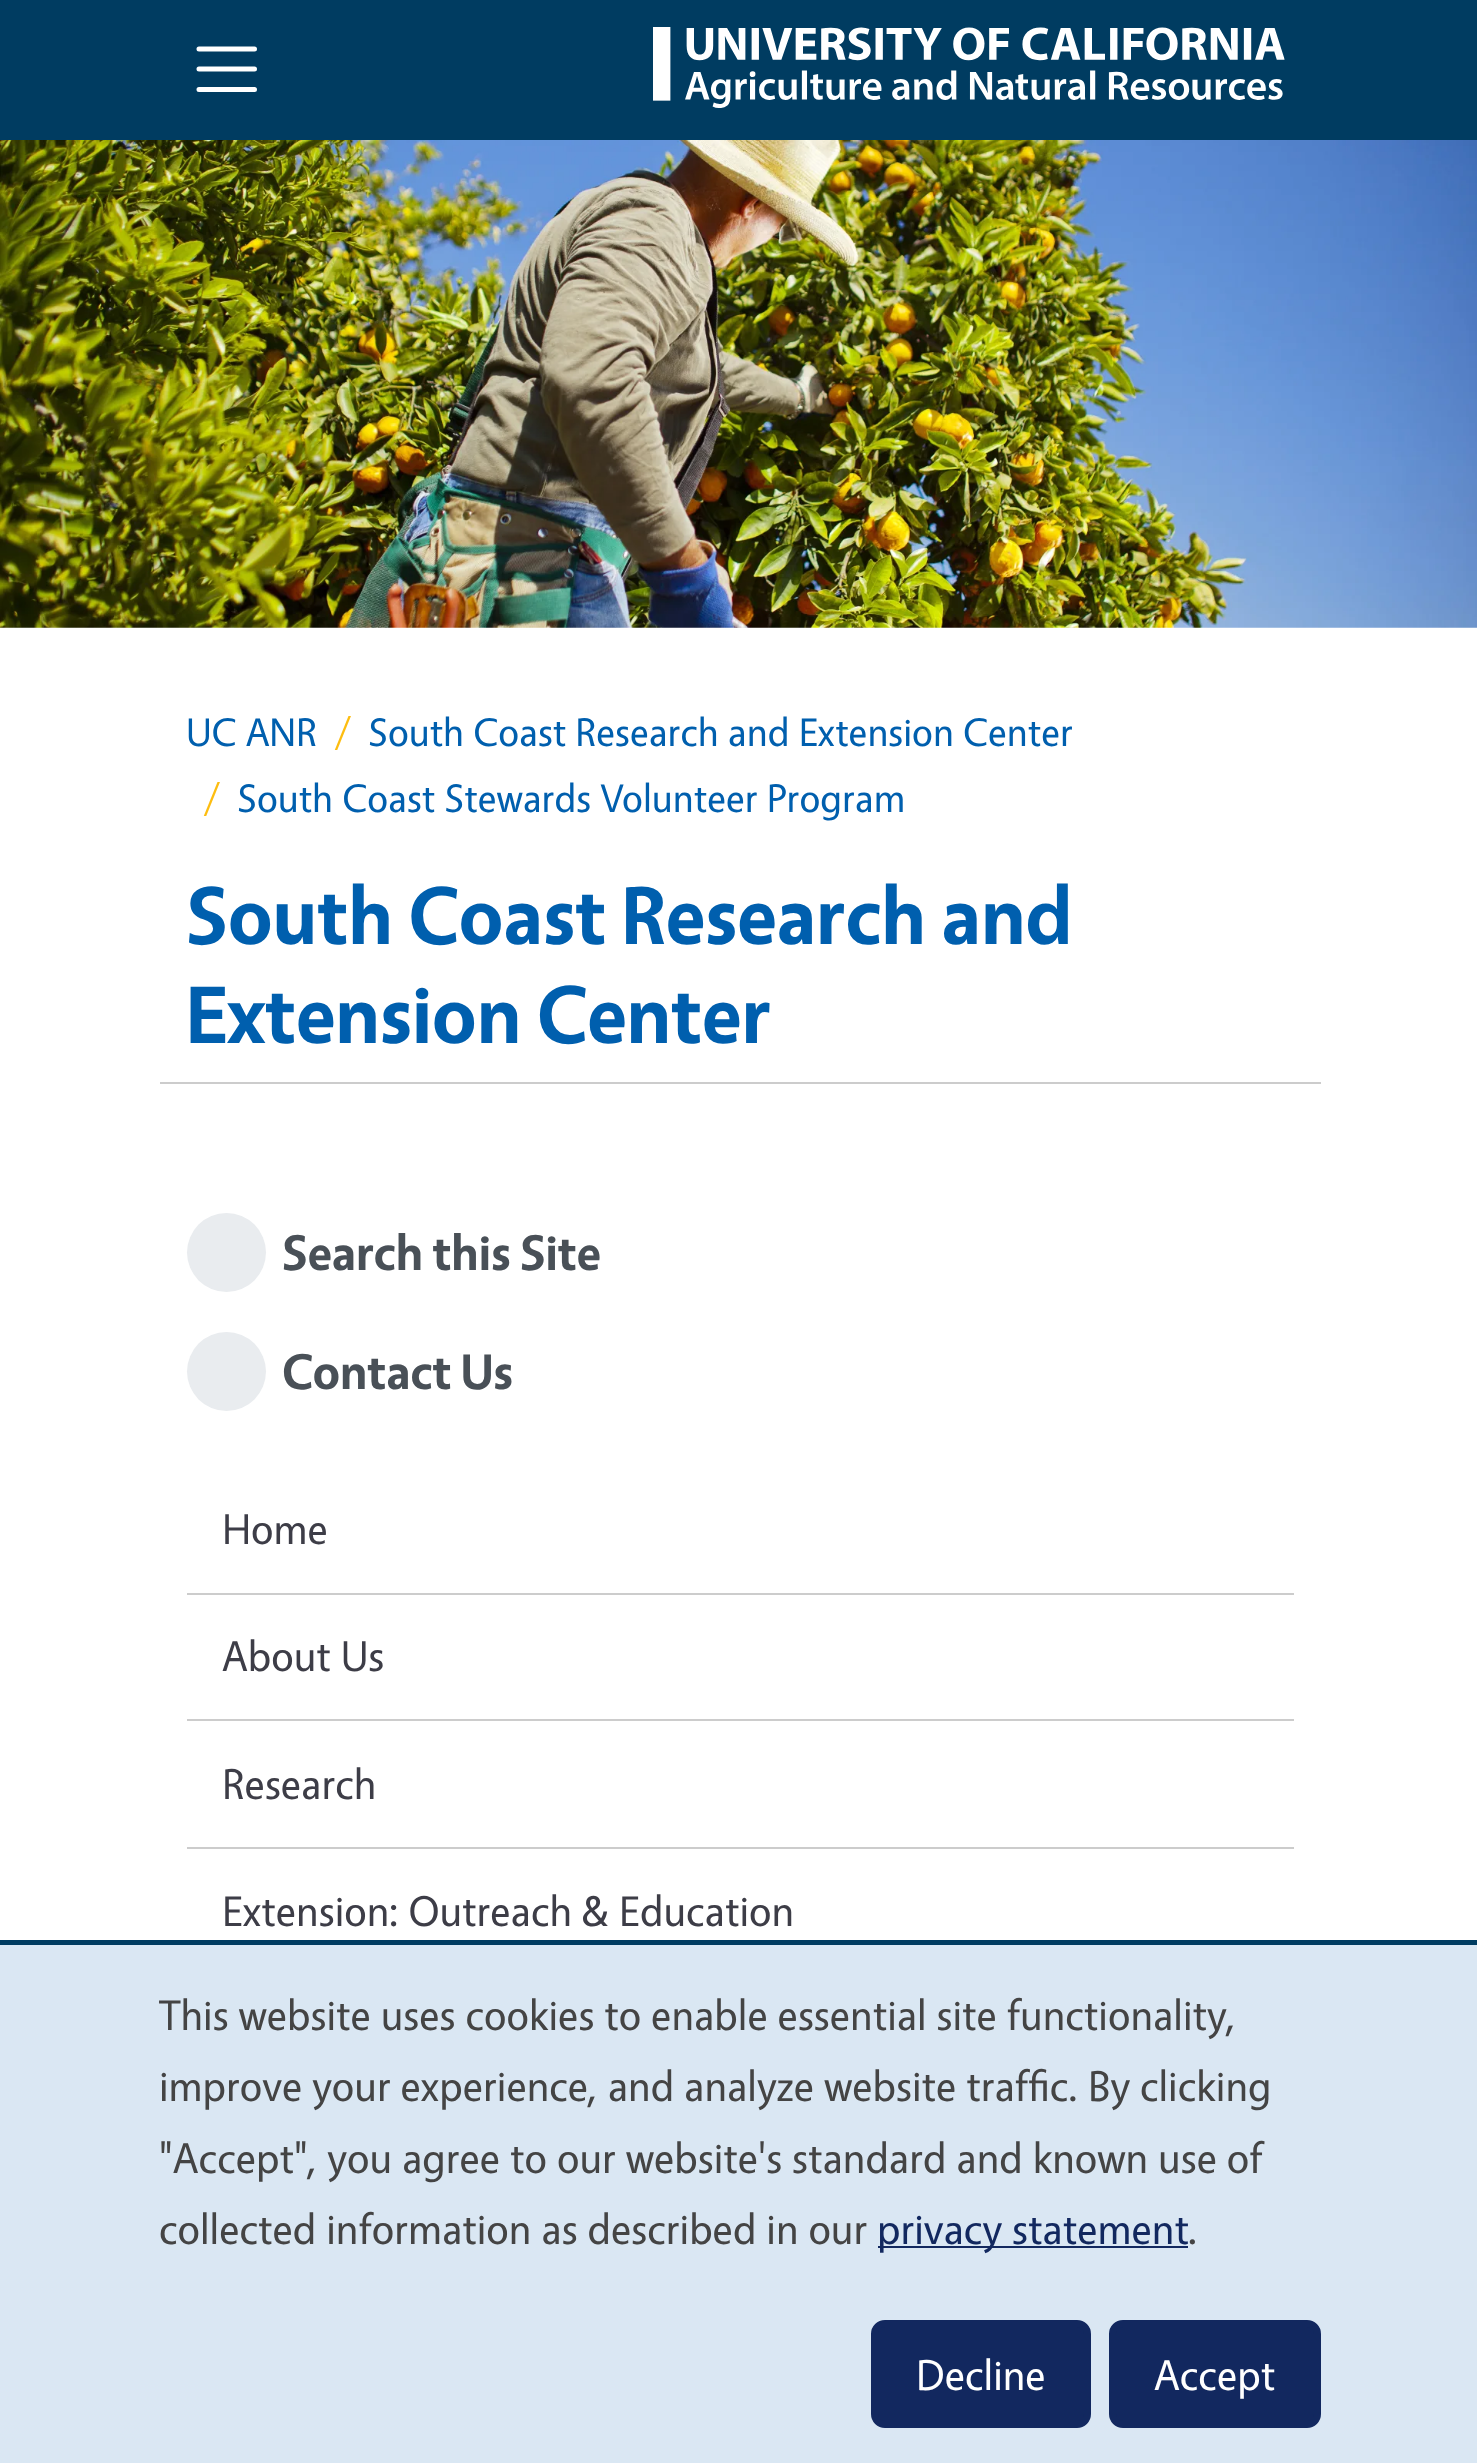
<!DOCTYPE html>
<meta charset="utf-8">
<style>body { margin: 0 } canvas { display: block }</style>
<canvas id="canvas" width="1477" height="2463"></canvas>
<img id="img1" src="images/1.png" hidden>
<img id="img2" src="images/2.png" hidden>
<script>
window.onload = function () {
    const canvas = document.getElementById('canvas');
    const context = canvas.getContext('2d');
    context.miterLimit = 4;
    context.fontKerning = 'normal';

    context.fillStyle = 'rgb(255, 255, 255)';
    context.fillRect(0, 0, 1477, 2463);
    context.fillStyle = 'rgb(0, 60, 97)';
    context.fillRect(0, 0, 1477, 140);
    context.beginPath();
    context.moveTo(199, 49);
    context.lineTo(254.5, 49);
    context.moveTo(199, 69);
    context.lineTo(254.5, 69);
    context.moveTo(199, 89.5);
    context.lineTo(254.5, 89.5);
    context.strokeStyle = 'rgb(255, 255, 255)';
    context.lineWidth = 5;
    context.lineCap = 'round';
    context.stroke();
    context.drawImage(document.getElementById('img1'), 653, 27, 632, 81);
    context.drawImage(document.getElementById('img2'), 0, 140, 1477, 488);
    context.fillStyle = 'rgb(204, 204, 204)';
    context.fillRect(160, 1082, 1161, 2);
    context.fillStyle = 'rgb(233, 236, 239)';
    context.beginPath();
    context.arc(226.5, 1252.5, 39.5, 0, 2 * Math.PI);
    context.fill();
    context.beginPath();
    context.arc(226.5, 1371.5, 39.5, 0, 2 * Math.PI);
    context.fill();
    context.fillStyle = 'rgb(204, 204, 204)';
    context.fillRect(187, 1593, 1107, 2);
    context.fillRect(187, 1719, 1107, 2);
    context.fillRect(187, 1847, 1107, 2);
    context.fillStyle = 'rgb(218, 231, 243)';
    context.fillRect(0, 1945, 1477, 518);
    context.fillStyle = 'rgb(0, 60, 97)';
    context.fillRect(0, 1940, 1477, 5);
    context.fillStyle = 'rgb(18, 40, 95)';
    context.fillRect(878, 2246, 310, 2);
    context.beginPath();
    context.roundRect(874.5, 2323.5, 213, 101, 10.5);
    context.fill();
    context.strokeStyle = 'rgb(18, 40, 95)';
    context.lineWidth = 7;
    context.stroke();
    context.beginPath();
    context.roundRect(1112.5, 2323.5, 205, 101, 10.5);
    context.fill();
    context.stroke();
    context.font = '40.1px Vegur';
    context.fillStyle = 'rgb(0, 95, 174)';
    context.fillText('UC ANR', 186, 746);
    context.fillStyle = 'rgb(253, 189, 16)';
    context.fillText('/', 335, 746);
    context.fillStyle = 'rgb(0, 95, 174)';
    context.fillText('South Coast Research and Extension Center', 368, 746);
    context.fillStyle = 'rgb(253, 189, 16)';
    context.fillText('/', 204, 812);
    context.fillStyle = 'rgb(0, 95, 174)';
    context.fillText('South Coast Stewards Volunteer Program', 237, 812);
    context.font = 'bold 82.25px Vegur';
    context.fillText('South Coast Research and', 186, 944);
    context.fillText('Extension Center', 186, 1043);
    context.font = 'bold 50.25px Vegur';
    context.fillStyle = 'rgb(73, 80, 87)';
    context.fillText('Search this Site', 282, 1270);
    context.fillText('Contact Us', 282, 1389);
    context.font = '43.2px Vegur';
    context.fillStyle = 'rgb(61, 61, 71)';
    context.fillText('Home', 222, 1544);
    context.fillText('About Us', 222, 1671);
    context.fillText('Research', 222, 1799);
    context.fillText('Extension: Outreach & Education', 222, 1926);
    context.fillStyle = 'rgb(68, 68, 68)';
    context.fillText('This website uses cookies to enable essential site functionality,', 159, 2030);
    context.fillText('improve your experience, and analyze website traffic. By clicking', 159, 2101);
    context.fillText('"Accept", you agree to our website\'s standard and known use of', 159, 2173);
    context.fillText('collected information as described in our', 159, 2244);
    context.fillStyle = 'rgb(18, 40, 95)';
    context.fillText('privacy statement', 877, 2244);
    context.fillStyle = 'rgb(68, 68, 68)';
    context.fillText('.', 1188, 2244);
    context.fillStyle = 'rgb(255, 255, 255)';
    context.fillText('Decline', 916, 2390);
    context.fillText('Accept', 1154, 2390);
};
</script>
